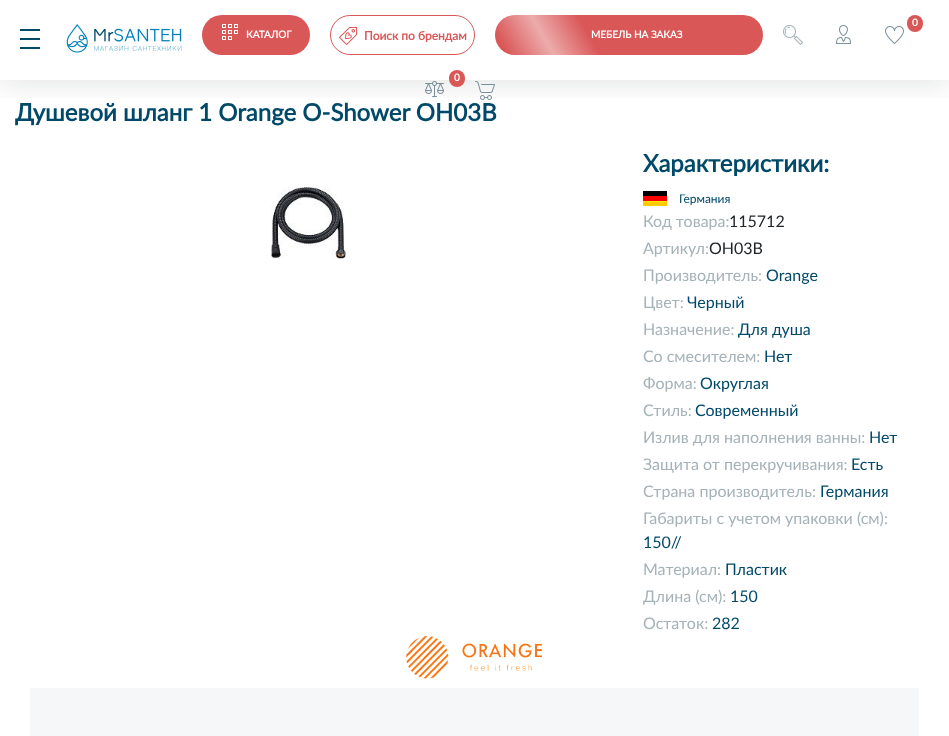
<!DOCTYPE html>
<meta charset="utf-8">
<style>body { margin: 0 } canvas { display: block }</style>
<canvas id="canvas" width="949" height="736"></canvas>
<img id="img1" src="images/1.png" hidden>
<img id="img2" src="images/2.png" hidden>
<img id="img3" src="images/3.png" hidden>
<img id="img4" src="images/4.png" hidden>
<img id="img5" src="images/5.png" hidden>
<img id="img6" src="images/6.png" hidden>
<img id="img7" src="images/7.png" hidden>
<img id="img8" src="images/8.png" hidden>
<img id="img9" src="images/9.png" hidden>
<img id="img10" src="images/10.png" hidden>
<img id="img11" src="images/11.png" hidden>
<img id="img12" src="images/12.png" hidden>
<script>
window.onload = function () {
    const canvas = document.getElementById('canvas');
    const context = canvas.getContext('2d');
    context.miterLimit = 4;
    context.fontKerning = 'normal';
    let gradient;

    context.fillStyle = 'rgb(255, 255, 255)';
    context.fillRect(0, 0, 949, 736);
    context.save();
    context.beginPath();
    context.rect(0, 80, 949, 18);
    context.clip();
    context.fillStyle = 'rgba(25, 36, 40, 0.12)';
    context.filter = 'blur(15px)';
    context.beginPath();
    context.rect(0, 4, 949, 80);
    context.fill();
    context.filter = 'none';
    context.restore();
    context.fillStyle = 'rgb(218, 87, 88)';
    context.beginPath();
    context.roundRect(907, 15, 16, 17, 8);
    context.fill();
    context.drawImage(document.getElementById('img1'), 885, 26, 19, 18);
    context.drawImage(document.getElementById('img2'), 20, 29, 20, 20);
    context.drawImage(document.getElementById('img3'), 66, 24, 116, 29);
    context.beginPath();
    context.roundRect(202, 15, 108, 40, 20);
    context.fill();
    context.drawImage(document.getElementById('img4'), 222, 24, 16, 16);
    context.beginPath();
    context.roundRect(330.5, 15.5, 144, 39, 19.5);
    context.strokeStyle = 'rgb(218, 87, 88)';
    context.stroke();
    context.drawImage(document.getElementById('img5'), 339, 27, 19, 18);
    context.beginPath();
    context.roundRect(495, 15, 268, 40, 20);
    context.fill();
    context.drawImage(document.getElementById('img6'), 783, 25, 20, 20);
    context.drawImage(document.getElementById('img7'), 836, 25, 15, 19);
    context.beginPath();
    context.roundRect(449, 70, 16, 17, 8);
    context.fill();
    context.drawImage(document.getElementById('img8'), 425, 81, 19, 16);
    context.drawImage(document.getElementById('img9'), 475, 81, 20, 19);
    context.drawImage(document.getElementById('img10'), 271, 187, 75, 72);
    context.drawImage(document.getElementById('img11'), 643, 191, 24, 15);
    context.drawImage(document.getElementById('img12'), 406, 636, 136, 43);
    context.fillStyle = 'rgb(245, 247, 249)';
    context.fillRect(30, 688, 889, 48);
    context.font = 'bold 10px Lato';
    context.fillStyle = 'rgb(255, 255, 255)';
    context.fillText('0', 912, 26);
    context.fillText('КАТАЛОГ', 246, 38);
    context.font = 'bold 12px Lato';
    context.fillStyle = 'rgb(218, 87, 88)';
    context.fillText('Поиск по брендам', 364, 40);
    context.font = 'bold 10px Lato';
    context.fillStyle = 'rgb(255, 255, 255)';
    context.fillText('МЕБЕЛЬ НА ЗАКАЗ', 591, 38);
    gradient = context.createLinearGradient(574, 9, 504, 49);
    gradient.addColorStop(0, 'rgba(255, 255, 255, 0)');
    gradient.addColorStop(0.5, 'rgba(255, 255, 255, 0.5)');
    gradient.addColorStop(1, 'rgba(255, 255, 255, 0)');
    context.fillStyle = gradient;
    context.beginPath();
    context.moveTo(515, 15);
    context.lineTo(577, 15);
    context.lineTo(601, 55);
    context.lineTo(515, 55);
    context.bezierCurveTo(512, 55, 509, 54, 506, 53);
    context.lineTo(495, 34);
    context.bezierCurveTo(496, 23, 504, 15, 515, 15);
    context.closePath();
    context.fill();
    context.fillStyle = 'rgb(255, 255, 255)';
    context.fillText('0', 454, 81);
    context.font = 'bold 24px Lato';
    context.fillStyle = 'rgb(0, 73, 105)';
    context.fillText('Душевой шланг 1 Orange O-Shower OH03B', 15, 121);
    context.fillText('Характеристики:', 643, 172);
    context.font = '12px Lato';
    context.fillText('Германия', 679, 203);
    context.font = '16px Lato';
    context.fillStyle = 'rgb(165, 178, 184)';
    context.fillText('Код товара:', 643, 227);
    context.fillStyle = 'rgb(33, 37, 41)';
    context.fillText('115712', 729, 227);
    context.fillStyle = 'rgb(165, 178, 184)';
    context.fillText('Артикул:', 643, 254);
    context.fillStyle = 'rgb(33, 37, 41)';
    context.fillText('OH03B', 709, 254);
    context.fillStyle = 'rgb(165, 178, 184)';
    context.fillText('Производитель:', 643, 281);
    context.fillStyle = 'rgb(0, 73, 105)';
    context.fillText('Orange', 766, 281);
    context.fillStyle = 'rgb(165, 178, 184)';
    context.fillText('Цвет:', 643, 308);
    context.fillStyle = 'rgb(0, 73, 105)';
    context.fillText('Черный', 687, 308);
    context.fillStyle = 'rgb(165, 178, 184)';
    context.fillText('Назначение:', 643, 335);
    context.fillStyle = 'rgb(0, 73, 105)';
    context.fillText('Для душа', 738, 335);
    context.fillStyle = 'rgb(165, 178, 184)';
    context.fillText('Со смесителем:', 643, 362);
    context.fillStyle = 'rgb(0, 73, 105)';
    context.fillText('Нет', 764, 362);
    context.fillStyle = 'rgb(165, 178, 184)';
    context.fillText('Форма:', 643, 389);
    context.fillStyle = 'rgb(0, 73, 105)';
    context.fillText('Округлая', 700, 389);
    context.fillStyle = 'rgb(165, 178, 184)';
    context.fillText('Стиль:', 643, 416);
    context.fillStyle = 'rgb(0, 73, 105)';
    context.fillText('Современный', 695, 416);
    context.fillStyle = 'rgb(165, 178, 184)';
    context.fillText('Излив для наполнения ванны:', 643, 443);
    context.fillStyle = 'rgb(0, 73, 105)';
    context.fillText('Нет', 869, 443);
    context.fillStyle = 'rgb(165, 178, 184)';
    context.fillText('Защита от перекручивания:', 643, 470);
    context.fillStyle = 'rgb(0, 73, 105)';
    context.fillText('Есть', 851, 470);
    context.fillStyle = 'rgb(165, 178, 184)';
    context.fillText('Страна производитель:', 643, 497);
    context.fillStyle = 'rgb(0, 73, 105)';
    context.fillText('Германия', 820, 497);
    context.fillStyle = 'rgb(165, 178, 184)';
    context.fillText('Габариты с учетом упаковки (см):', 643, 524);
    context.fillStyle = 'rgb(0, 73, 105)';
    context.fillText('150//', 643, 548);
    context.fillStyle = 'rgb(165, 178, 184)';
    context.fillText('Материал:', 643, 575);
    context.fillStyle = 'rgb(0, 73, 105)';
    context.fillText('Пластик', 725, 575);
    context.fillStyle = 'rgb(165, 178, 184)';
    context.fillText('Длина (см):', 643, 602);
    context.fillStyle = 'rgb(0, 73, 105)';
    context.fillText('150', 730, 602);
    context.fillStyle = 'rgb(165, 178, 184)';
    context.fillText('Остаток:', 643, 629);
    context.fillStyle = 'rgb(0, 73, 105)';
    context.fillText('282', 712, 629);
};
</script>
